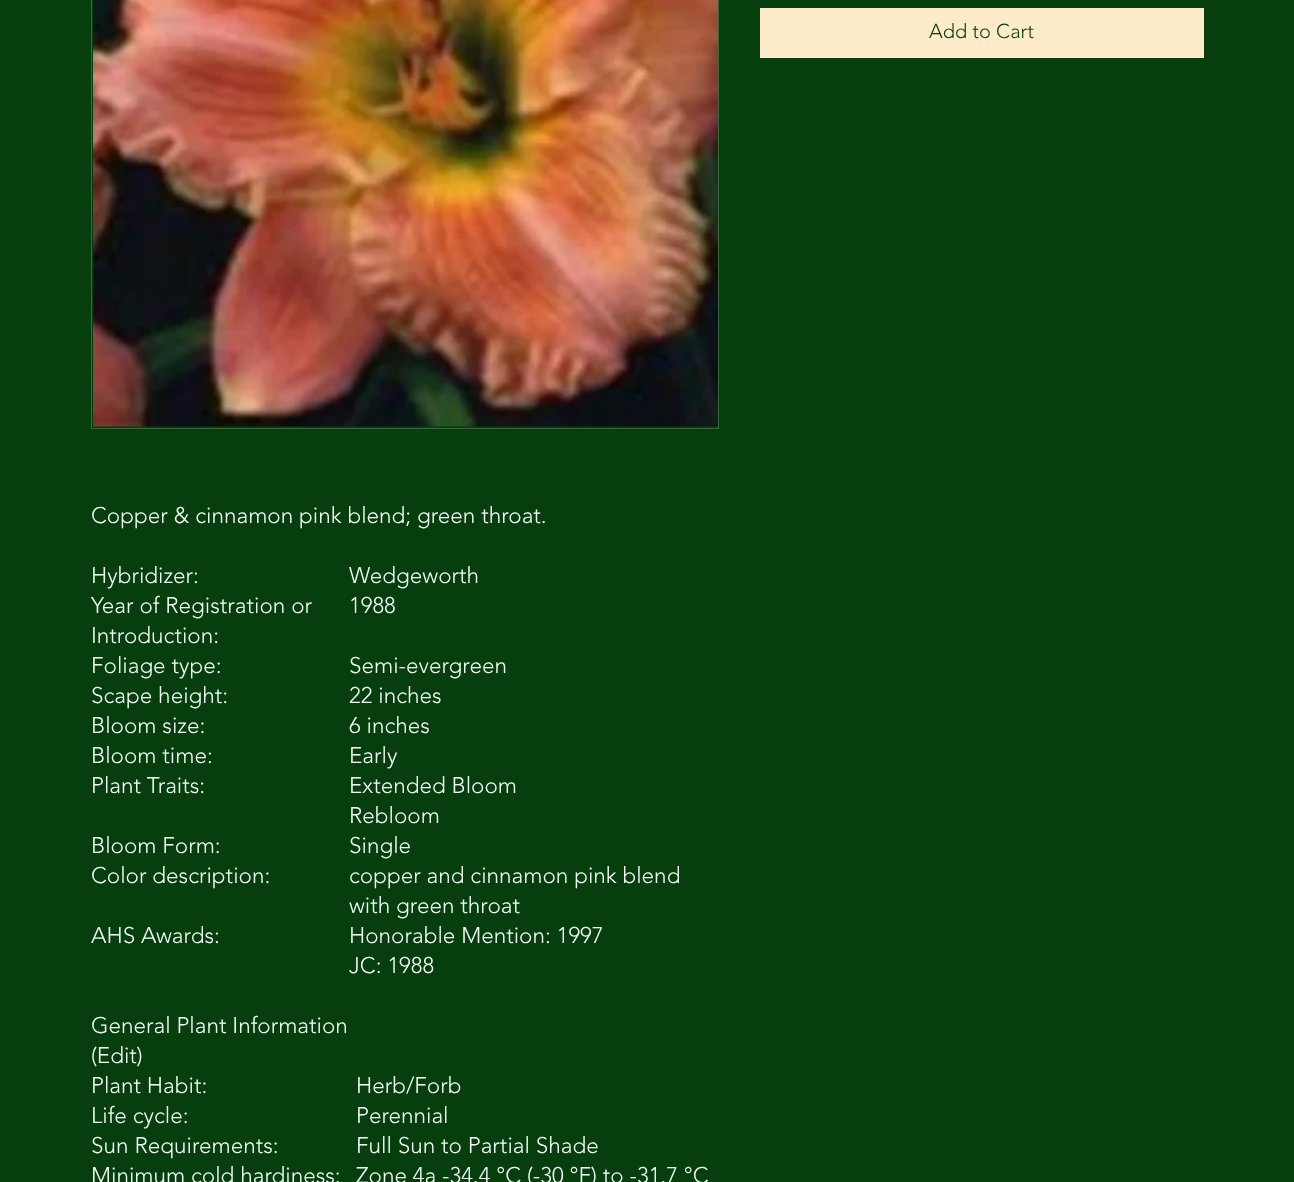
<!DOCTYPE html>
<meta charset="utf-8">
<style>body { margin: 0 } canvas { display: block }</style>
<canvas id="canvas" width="1294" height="1182"></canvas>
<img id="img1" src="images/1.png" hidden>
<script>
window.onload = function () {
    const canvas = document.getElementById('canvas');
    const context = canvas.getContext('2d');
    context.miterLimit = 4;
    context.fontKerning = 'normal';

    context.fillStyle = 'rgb(6, 63, 13)';
    context.fillRect(0, 0, 1294, 1182);
    context.fillStyle = 'rgb(253, 235, 201)';
    context.fillRect(760, 8, 444, 50);
    context.strokeStyle = 'rgb(56, 101, 61)';
    context.strokeRect(91.5, -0.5, 627, 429);
    context.drawImage(document.getElementById('img1'), 93, 0, 625, 427);
    context.font = '300 20px "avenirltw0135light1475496"';
    context.fillStyle = 'rgb(6, 63, 13)';
    context.fillText('Add to Cart', 929, 38);
    context.font = '300 22.5px "avenirltw0135light1475496"';
    context.fillStyle = 'rgb(245, 255, 247)';
    context.fillText('Copper & cinnamon pink blend; green throat.', 91, 523);
    context.fillText('Hybridizer:', 91, 583);
    context.fillText('Wedgeworth', 349, 583);
    context.fillText('Year of Registration or', 91, 613);
    context.fillText('Introduction:', 91, 643);
    context.fillText('1988', 349, 613);
    context.fillText('Foliage type:', 91, 673);
    context.fillText('Semi-evergreen', 349, 673);
    context.fillText('Scape height:', 91, 703);
    context.fillText('22 inches', 349, 703);
    context.fillText('Bloom size:', 91, 733);
    context.fillText('6 inches', 349, 733);
    context.fillText('Bloom time:', 91, 763);
    context.fillText('Early', 349, 763);
    context.fillText('Plant Traits:', 91, 793);
    context.fillText('Extended Bloom', 349, 793);
    context.fillText('Rebloom', 349, 823);
    context.fillText('Bloom Form:', 91, 853);
    context.fillText('Single', 349, 853);
    context.fillText('Color description:', 91, 883);
    context.fillText('copper and cinnamon pink blend', 349, 883);
    context.fillText('with green throat', 349, 913);
    context.fillText('AHS Awards:', 91, 943);
    context.fillText('Honorable Mention: 1997', 349, 943);
    context.fillText('JC: 1988', 349, 973);
    context.fillText('General Plant Information', 91, 1033);
    context.fillText('(Edit)', 91, 1063);
    context.fillText('Plant Habit:', 91, 1093);
    context.fillText('Herb/Forb', 356, 1093);
    context.fillText('Life cycle:', 91, 1123);
    context.fillText('Perennial', 356, 1123);
    context.fillText('Sun Requirements:', 91, 1153);
    context.fillText('Full Sun to Partial Shade', 356, 1153);
    context.fillText('Minimum cold hardiness:', 91, 1183);
    context.fillText('Zone 4a -34.4 °C (-30 °F) to -31.7 °C', 356, 1183);
};
</script>
